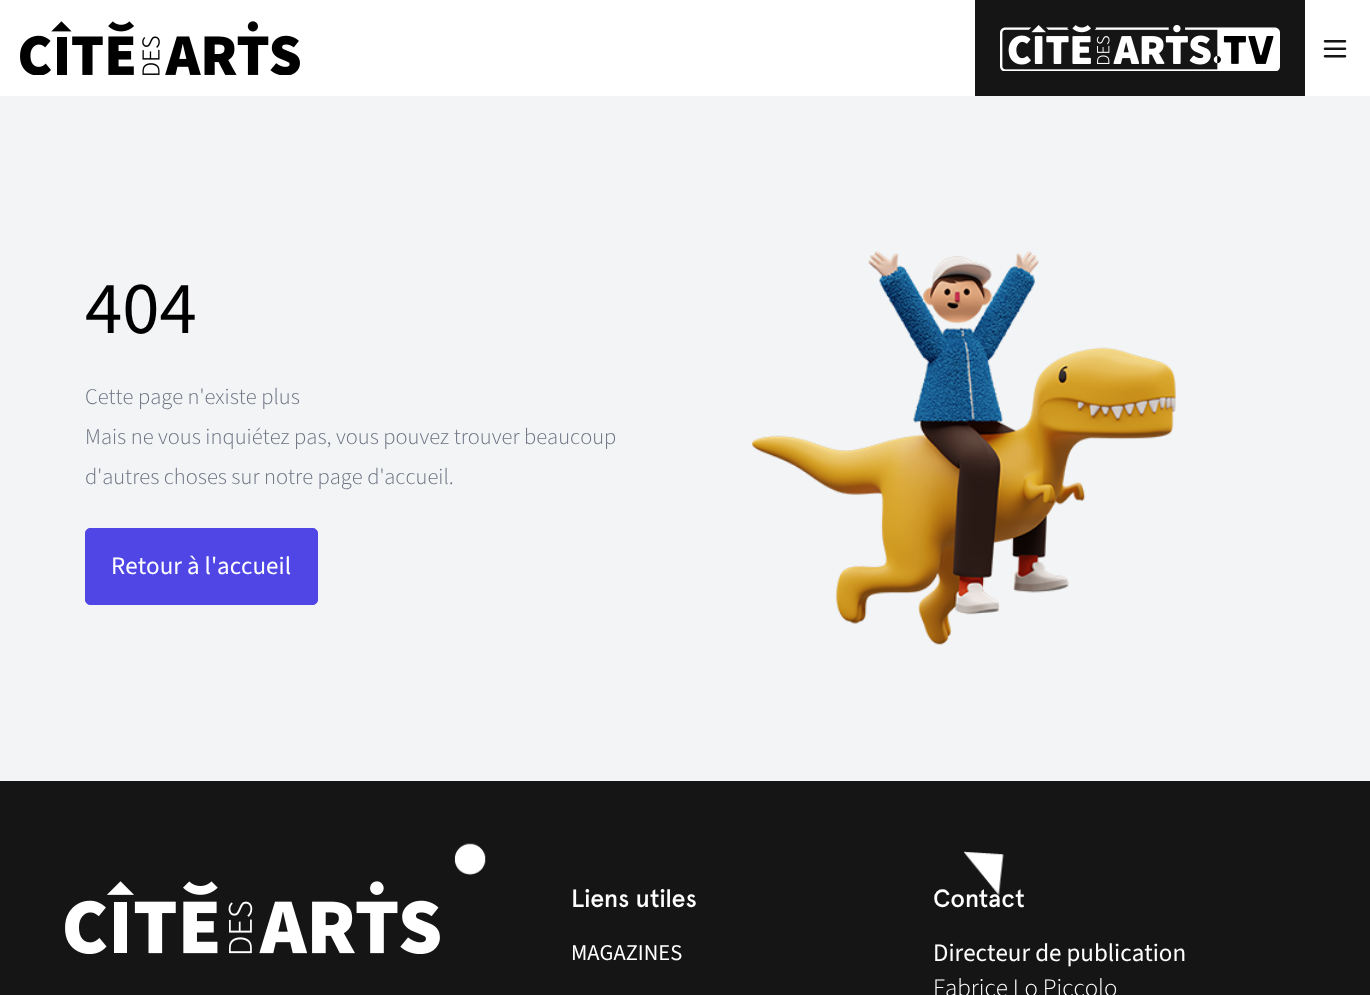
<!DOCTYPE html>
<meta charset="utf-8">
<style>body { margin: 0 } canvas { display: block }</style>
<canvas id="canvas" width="1370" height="995"></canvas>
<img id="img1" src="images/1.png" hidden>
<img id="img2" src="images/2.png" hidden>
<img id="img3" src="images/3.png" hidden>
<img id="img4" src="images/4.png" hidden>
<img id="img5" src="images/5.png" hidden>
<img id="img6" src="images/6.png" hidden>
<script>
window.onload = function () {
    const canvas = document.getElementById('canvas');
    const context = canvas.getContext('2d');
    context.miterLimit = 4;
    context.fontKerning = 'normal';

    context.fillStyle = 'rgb(243, 244, 246)';
    context.fillRect(0, 0, 1370, 995);
    context.fillStyle = 'rgb(255, 255, 255)';
    context.fillRect(0, 0, 1370, 96);
    context.drawImage(document.getElementById('img1'), 20, 21, 280, 54);
    context.fillStyle = 'rgb(21, 21, 21)';
    context.fillRect(975, 0, 330, 96);
    context.drawImage(document.getElementById('img2'), 1000, 25, 280, 46);
    context.drawImage(document.getElementById('img3'), 1323, 40, 24, 18);
    context.fillStyle = 'rgb(79, 70, 229)';
    context.beginPath();
    context.roundRect(85.5, 528.5, 232, 76, 4.5);
    context.fill();
    context.strokeStyle = 'rgb(79, 70, 229)';
    context.stroke();
    context.drawImage(document.getElementById('img4'), 752, 251, 424, 394);
    context.fillStyle = 'rgb(21, 21, 21)';
    context.fillRect(0, 781, 1370, 214);
    context.drawImage(document.getElementById('img5'), 454, 843, 550, 52);
    context.drawImage(document.getElementById('img6'), 65, 881, 375, 73);
    context.font = '75px "Source Sans 3"';
    context.fillStyle = 'rgb(0, 0, 0)';
    context.fillText('404', 85, 333);
    context.font = '300 22.5px "Source Sans 3"';
    context.fillStyle = 'rgb(107, 114, 128)';
    context.fillText('Cette page n\'existe plus', 85, 404);
    context.fillText('Mais ne vous inquiétez pas, vous pouvez trouver beaucoup', 85, 444);
    context.fillText('d\'autres choses sur notre page d\'accueil.', 85, 484);
    context.font = '25px "Source Sans 3"';
    context.fillStyle = 'rgb(255, 255, 255)';
    context.fillText('Retour à l\'accueil', 111, 574);
    context.font = '500 25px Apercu';
    context.fillText('Liens utiles', 571, 907);
    context.font = '22.5px "Source Sans 3"';
    context.fillText('MAGAZINES', 571, 960);
    context.font = '500 25px Apercu';
    context.fillText('Contact', 933, 907);
    context.font = '25px "Source Sans 3"';
    context.fillText('Directeur de publication', 933, 961);
    context.font = '300 25px "Source Sans 3"';
    context.fillText('Fabrice Lo Piccolo', 933, 996);
};
</script>
